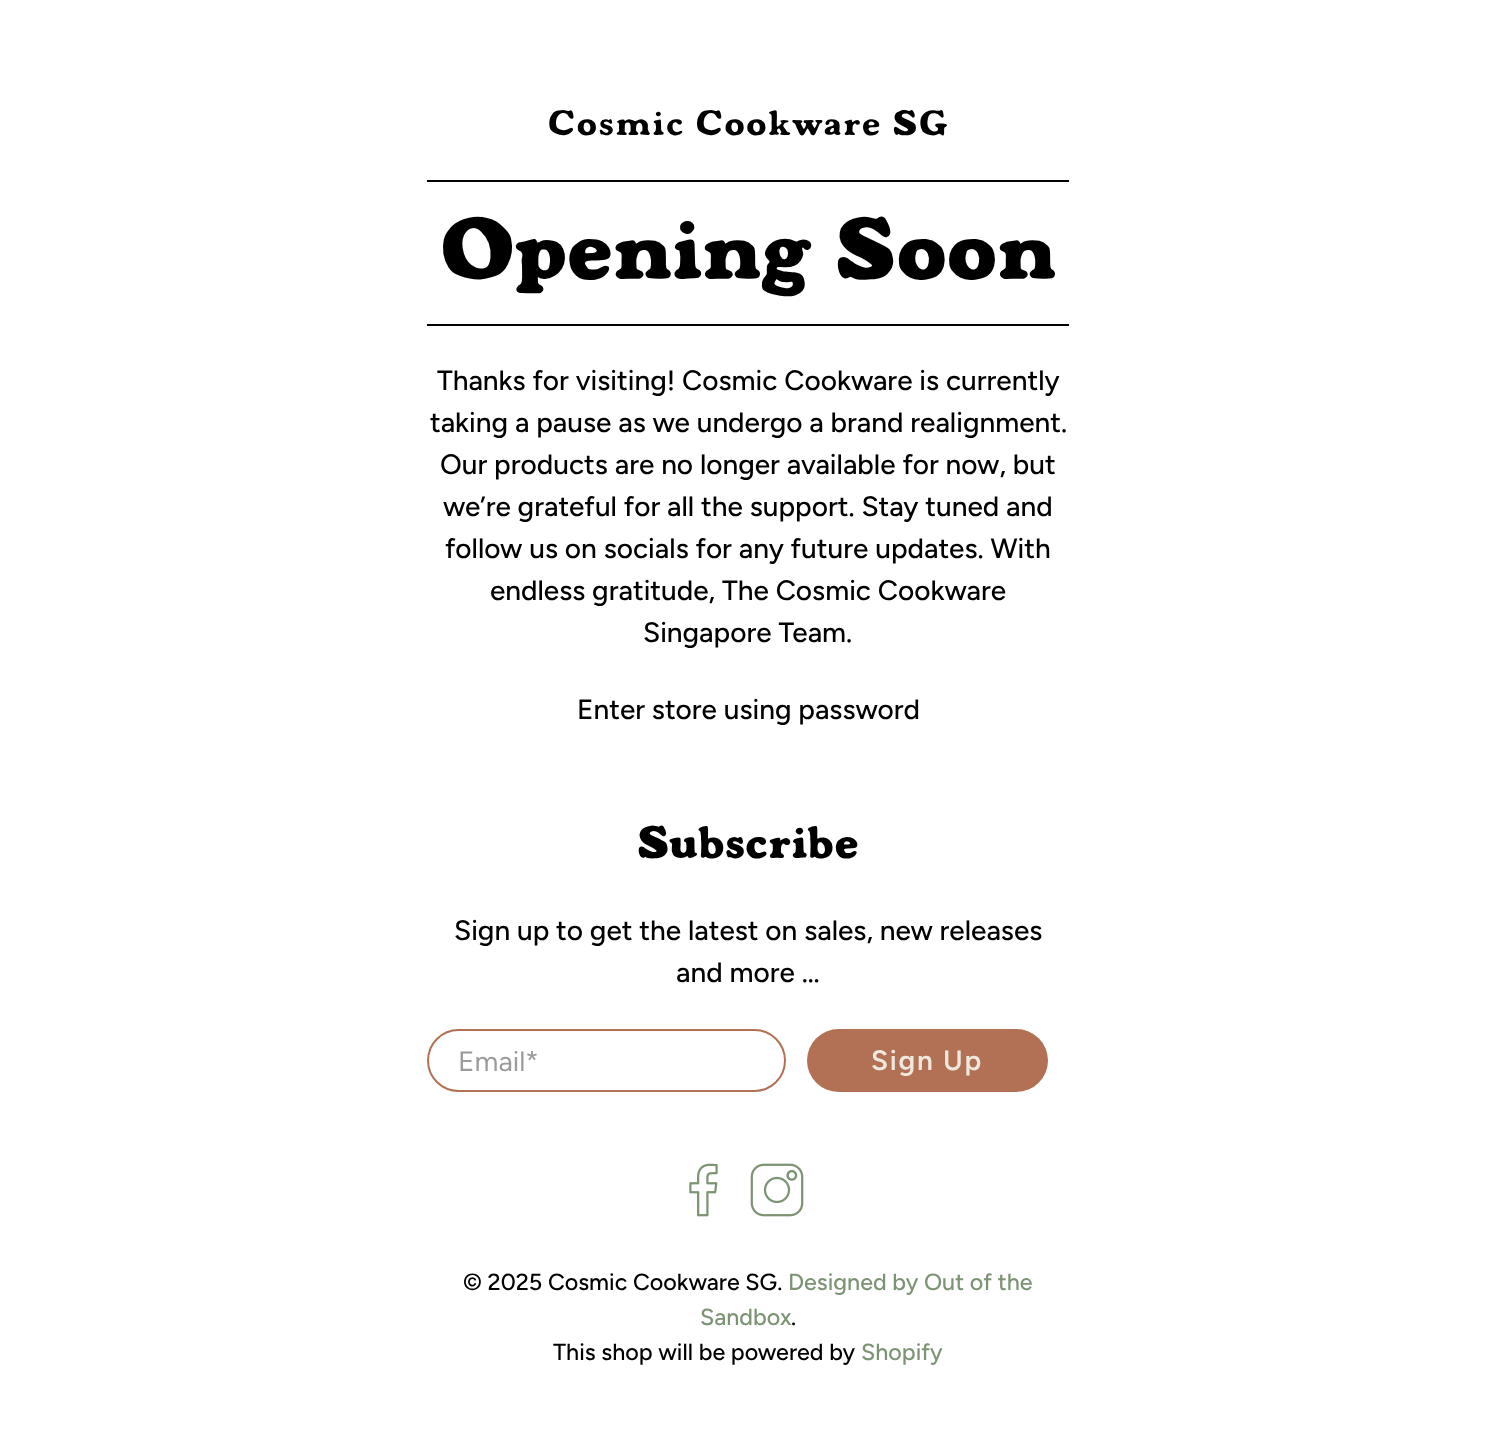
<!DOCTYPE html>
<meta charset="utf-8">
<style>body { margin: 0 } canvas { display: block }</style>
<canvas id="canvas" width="1495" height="1435"></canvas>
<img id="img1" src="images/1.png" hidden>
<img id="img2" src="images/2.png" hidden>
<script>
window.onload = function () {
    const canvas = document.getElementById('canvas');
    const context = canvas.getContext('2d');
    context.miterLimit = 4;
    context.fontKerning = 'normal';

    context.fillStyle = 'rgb(255, 255, 255)';
    context.fillRect(0, 0, 1495, 1435);
    context.fillStyle = 'rgb(0, 0, 0)';
    context.fillRect(427, 180, 642, 2);
    context.fillRect(427, 324, 642, 2);
    context.beginPath();
    context.roundRect(428, 1030, 357, 61, 30.5);
    context.strokeStyle = 'rgb(178, 113, 84)';
    context.lineWidth = 2;
    context.stroke();
    context.fillStyle = 'rgb(178, 113, 84)';
    context.beginPath();
    context.roundRect(807, 1029, 241, 63, 31.5);
    context.fill();
    context.drawImage(document.getElementById('img1'), 689, 1163, 29, 54);
    context.drawImage(document.getElementById('img2'), 750, 1163, 54, 54);
    context.letterSpacing = '1.75px';
    context.font = '35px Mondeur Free';
    context.fillStyle = 'rgb(0, 0, 0)';
    context.fillText('Cosmic Cookware SG', 548, 135);
    context.font = 'bold 84px Mondeur Free';
    context.fillText('Opening Soon', 440, 279);
    context.letterSpacing = '0px';
    context.font = '500 28px Figtree';
    context.fillText('Thanks for visiting! Cosmic Cookware is currently', 437, 390);
    context.fillText('taking a pause as we undergo a brand realignment.', 430, 432);
    context.fillText('Our products are no longer available for now, but', 440, 474);
    context.fillText('we’re grateful for all the support. Stay tuned and', 443, 516);
    context.fillText('follow us on socials for any future updates. With', 445, 558);
    context.fillText('endless gratitude, The Cosmic Cookware', 490, 600);
    context.fillText('Singapore Team.', 643, 642);
    context.fillText('Enter store using password', 577, 719);
    context.letterSpacing = '1.75px';
    context.font = 'bold 43.75px Mondeur Free';
    context.fillText('Subscribe', 637, 858);
    context.letterSpacing = '0px';
    context.font = '500 28px Figtree';
    context.fillText('Sign up to get the latest on sales, new releases', 454, 940);
    context.fillText('and more …', 676, 982);
    context.font = '28px Figtree';
    context.fillStyle = 'rgb(155, 155, 155)';
    context.fillText('Email*', 458, 1071);
    context.letterSpacing = '1.75px';
    context.font = '600 28px Figtree';
    context.fillStyle = 'rgb(239, 233, 221)';
    context.fillText('Sign Up', 871, 1070);
    context.letterSpacing = '0px';
    context.font = '500 23.3px Figtree';
    context.fillStyle = 'rgb(0, 0, 0)';
    context.fillText('© 2025 Cosmic Cookware SG.', 463, 1290);
    context.fillStyle = 'rgb(124, 148, 115)';
    context.fillText('Designed by Out of the', 788, 1290);
    context.fillText('Sandbox', 700, 1325);
    context.fillStyle = 'rgb(0, 0, 0)';
    context.fillText('.', 791, 1325);
    context.fillText('This shop will be powered by', 553, 1360);
    context.fillStyle = 'rgb(124, 148, 115)';
    context.fillText('Shopify', 861, 1360);
};
</script>
